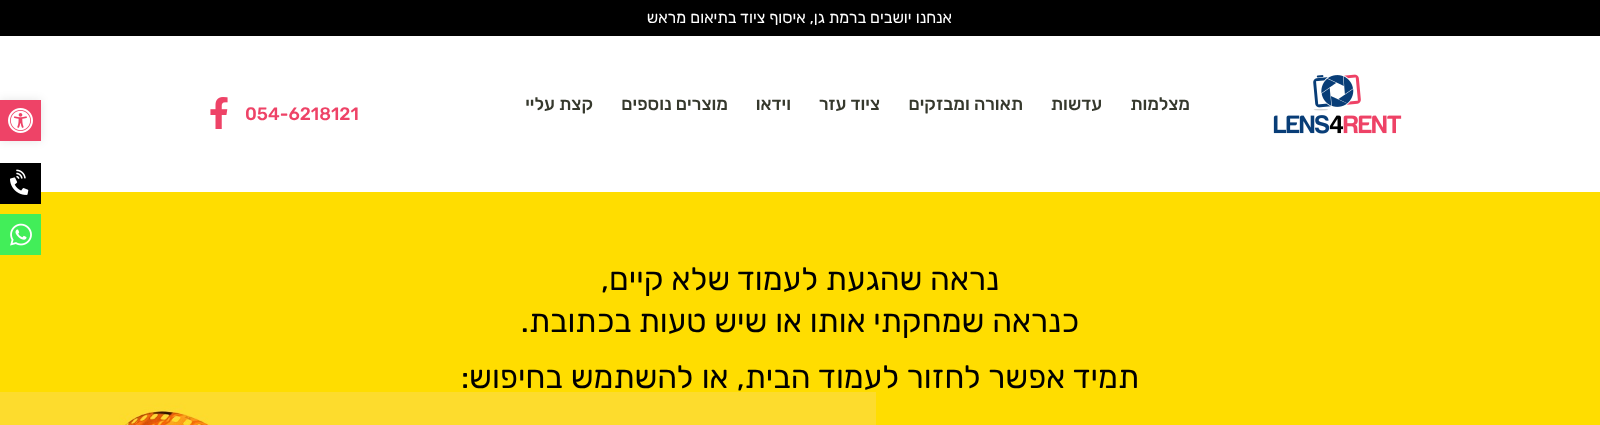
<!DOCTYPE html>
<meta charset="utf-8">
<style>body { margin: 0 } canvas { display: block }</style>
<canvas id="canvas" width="1600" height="425"></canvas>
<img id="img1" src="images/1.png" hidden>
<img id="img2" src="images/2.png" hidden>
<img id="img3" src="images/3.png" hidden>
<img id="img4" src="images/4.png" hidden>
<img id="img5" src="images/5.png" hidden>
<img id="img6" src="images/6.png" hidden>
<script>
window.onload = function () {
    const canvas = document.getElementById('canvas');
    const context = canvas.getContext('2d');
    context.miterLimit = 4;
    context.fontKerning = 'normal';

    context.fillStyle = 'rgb(255, 255, 255)';
    context.fillRect(0, 0, 1600, 425);
    context.fillStyle = 'rgb(0, 0, 0)';
    context.fillRect(0, 0, 1600, 36);
    context.drawImage(document.getElementById('img1'), 1273, 74, 129, 60);
    context.drawImage(document.getElementById('img2'), 210, 97, 18, 32);
    context.fillStyle = 'rgba(0, 0, 0, 0.1)';
    context.filter = 'blur(5px)';
    context.beginPath();
    context.rect(0, 100, 41, 41);
    context.fill();
    context.filter = 'none';
    context.fillStyle = 'rgb(238, 67, 103)';
    context.fillRect(0, 100, 41, 41);
    context.drawImage(document.getElementById('img3'), 8, 108, 25, 25);
    context.fillStyle = 'rgb(255, 221, 0)';
    context.fillRect(0, 192, 1600, 233);
    context.fillStyle = 'rgb(0, 0, 0)';
    context.fillRect(0, 163, 41, 41);
    context.drawImage(document.getElementById('img4'), 10, 169, 19, 26);
    context.fillStyle = 'rgb(66, 238, 89)';
    context.fillRect(0, 214, 41, 41);
    context.drawImage(document.getElementById('img5'), 10, 223, 22, 23);
    context.drawImage(document.getElementById('img6'), 0, 392, 876, 33);
    context.wordSpacing = '0.25px';
    context.direction = 'rtl';
    context.font = '16px Rubik';
    context.fillStyle = 'rgb(255, 255, 255)';
    context.fillText('אנחנו יושבים ברמת גן, איסוף ציוד בתיאום מראש', 952, 23);
    context.wordSpacing = '0px';
    context.font = '500 18px Rubik';
    context.fillStyle = 'rgb(54, 57, 45)';
    context.fillText('מצלמות', 1190, 110);
    context.fillText('עדשות', 1102, 110);
    context.fillText('תאורה ומבזקים', 1023, 110);
    context.fillText('ציוד עזר', 880, 110);
    context.fillText('וידאו', 791, 110);
    context.fillText('מוצרים נוספים', 728, 110);
    context.fillText('קצת עליי', 593, 110);
    context.direction = 'ltr';
    context.fillStyle = 'rgb(238, 67, 103)';
    context.fillText('054-6218121', 245, 120);
    context.direction = 'rtl';
    context.font = '32px Rubik';
    context.fillStyle = 'rgb(0, 0, 0)';
    context.fillText('נראה שהגעת לעמוד שלא קיים,', 999, 290);
    context.fillText('כנראה שמחקתי אותו או שיש טעות בכתובת.', 1079, 332);
    context.wordSpacing = '0.5px';
    context.fillText('תמיד אפשר לחזור לעמוד הבית, או להשתמש בחיפוש:', 1139, 388);
};
</script>
